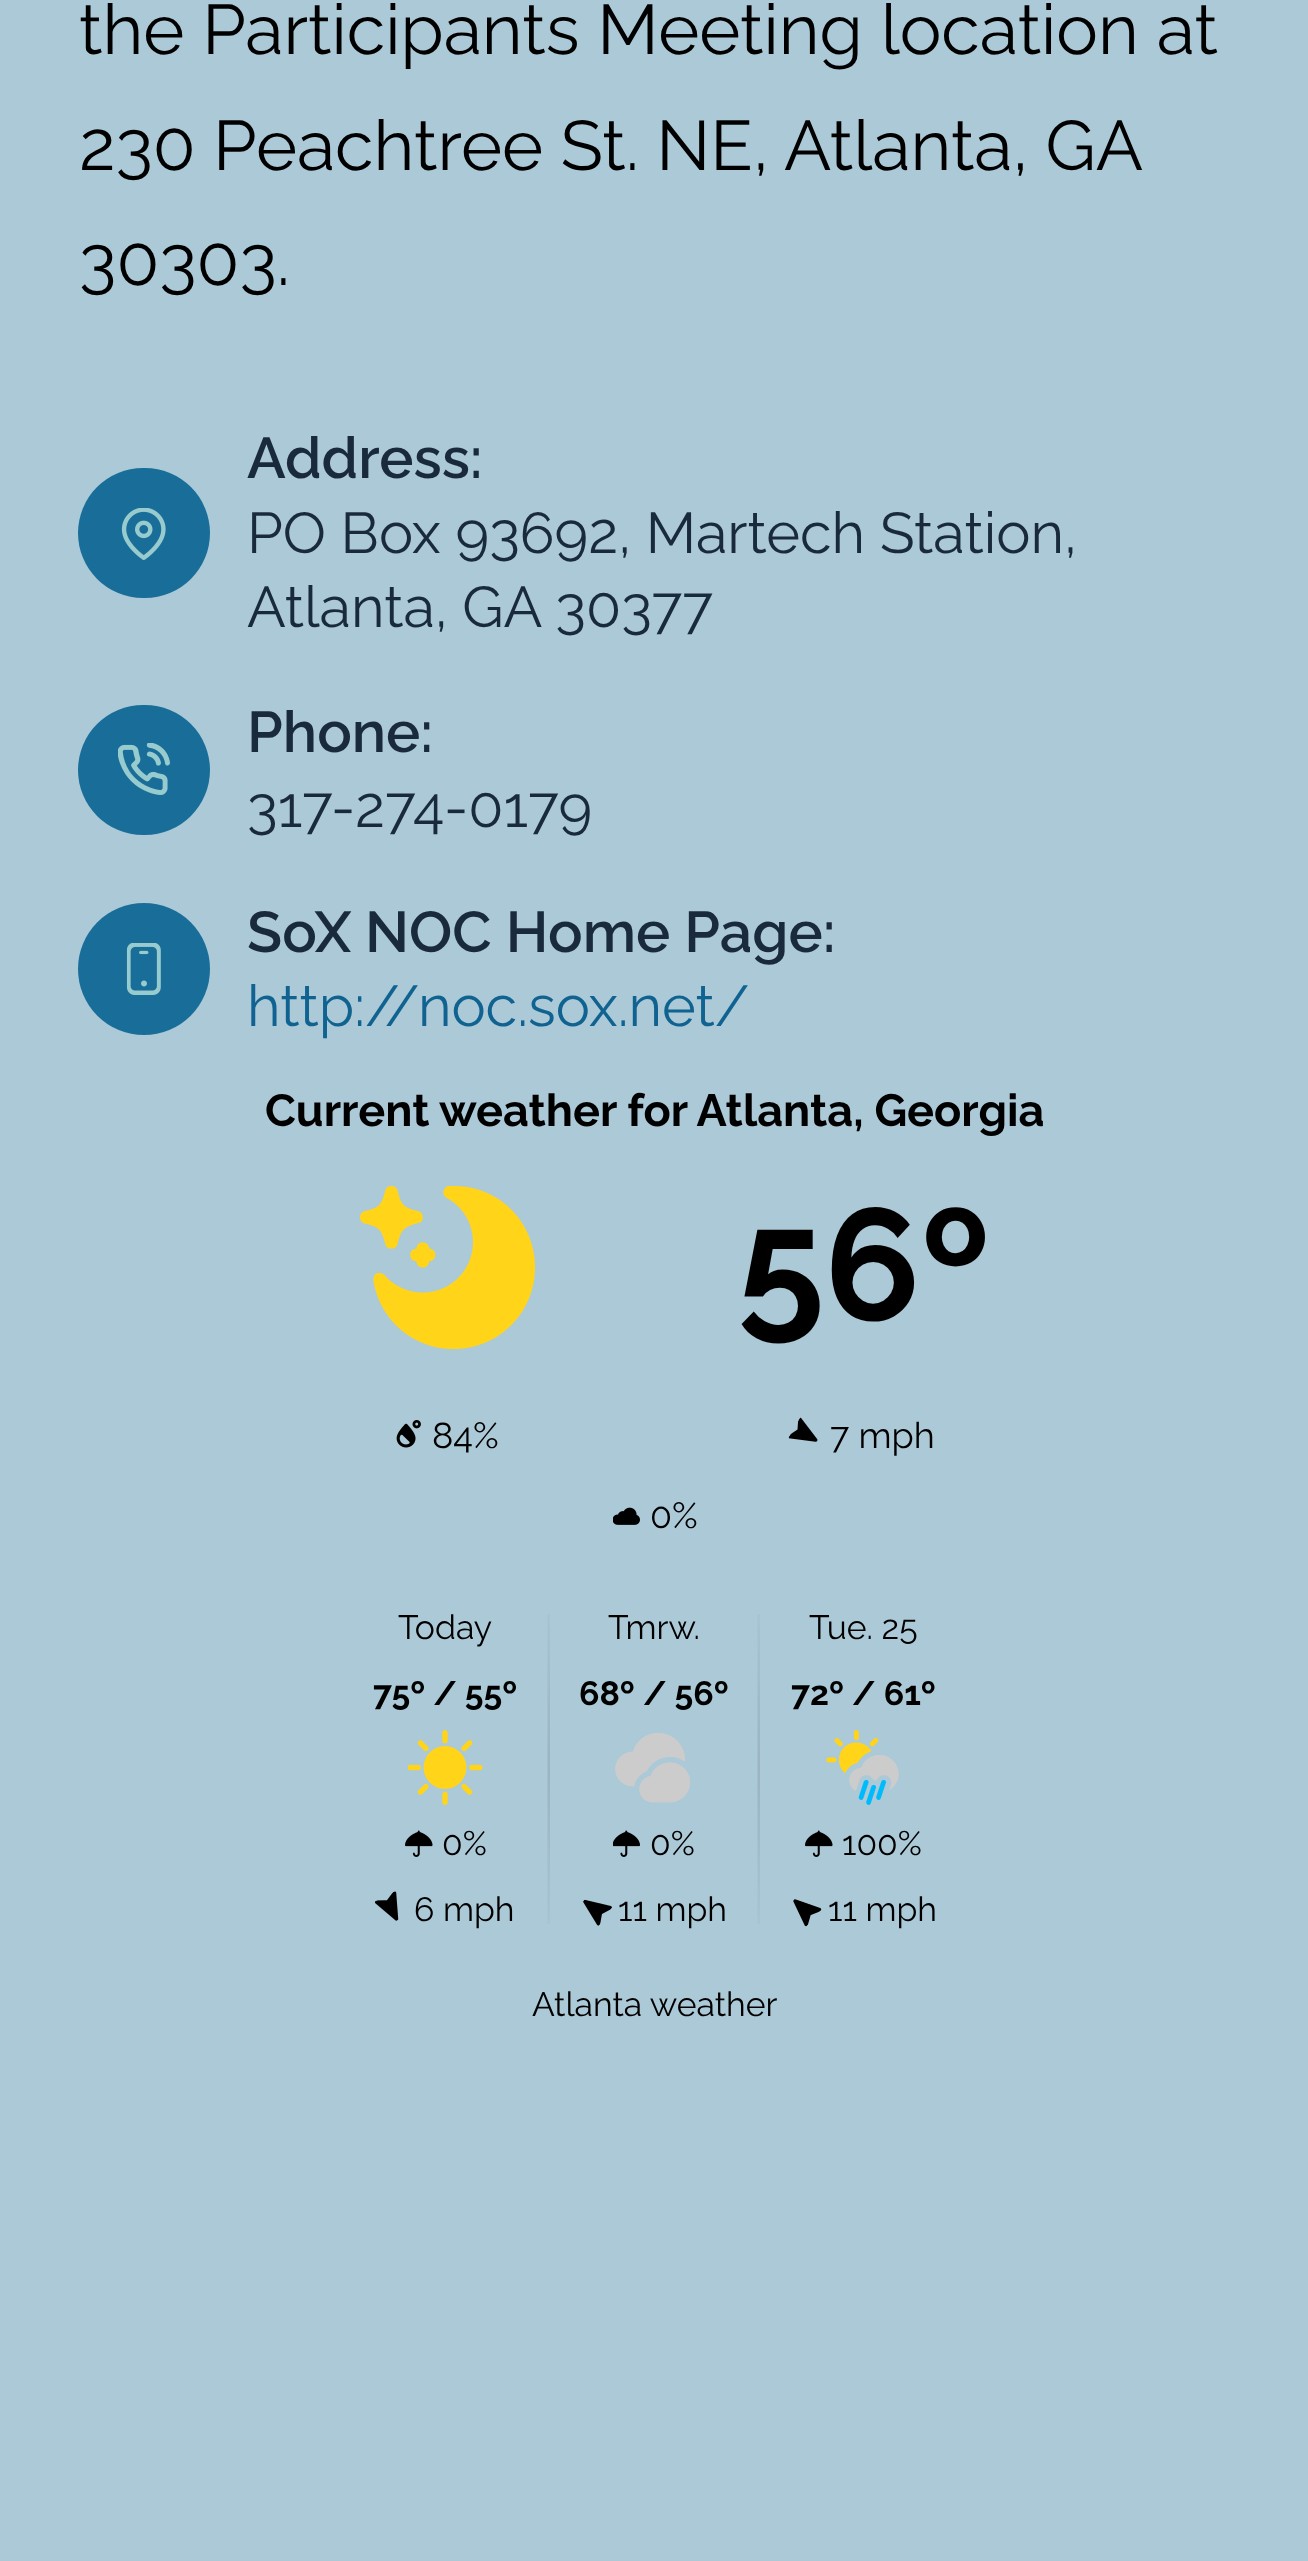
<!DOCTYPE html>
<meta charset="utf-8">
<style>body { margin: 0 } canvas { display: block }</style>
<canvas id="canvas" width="1308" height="2561"></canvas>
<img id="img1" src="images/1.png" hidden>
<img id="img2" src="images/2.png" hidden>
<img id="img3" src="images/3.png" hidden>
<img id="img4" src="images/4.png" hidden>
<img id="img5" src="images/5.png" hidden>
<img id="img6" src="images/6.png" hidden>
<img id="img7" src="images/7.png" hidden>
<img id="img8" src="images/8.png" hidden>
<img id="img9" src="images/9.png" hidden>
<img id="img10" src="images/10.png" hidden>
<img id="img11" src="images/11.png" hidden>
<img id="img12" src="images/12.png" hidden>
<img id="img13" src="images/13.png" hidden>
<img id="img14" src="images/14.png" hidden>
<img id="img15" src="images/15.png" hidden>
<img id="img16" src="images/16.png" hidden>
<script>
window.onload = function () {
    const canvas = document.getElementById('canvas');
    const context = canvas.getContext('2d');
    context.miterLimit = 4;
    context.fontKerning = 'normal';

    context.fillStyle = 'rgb(172, 201, 215)';
    context.fillRect(0, 0, 1308, 2561);
    context.fillStyle = 'rgb(25, 110, 153)';
    context.beginPath();
    context.roundRect(78, 468, 132, 130, 65);
    context.fill();
    context.drawImage(document.getElementById('img1'), 121, 508, 45, 52);
    context.beginPath();
    context.roundRect(78, 705, 132, 130, 65);
    context.fill();
    context.drawImage(document.getElementById('img2'), 118, 743, 52, 52);
    context.beginPath();
    context.arc(144, 969, 66, 0, 2 * Math.PI);
    context.fill();
    context.drawImage(document.getElementById('img3'), 126, 943, 35, 52);
    context.drawImage(document.getElementById('img4'), 360, 1185, 175, 165);
    context.drawImage(document.getElementById('img5'), 396, 1420, 25, 28);
    context.drawImage(document.getElementById('img6'), 788, 1417, 30, 25);
    context.drawImage(document.getElementById('img7'), 613, 1507, 27, 18);
    context.drawImage(document.getElementById('img8'), 547, 1614, 3, 310);
    context.drawImage(document.getElementById('img9'), 408, 1730, 75, 75);
    context.drawImage(document.getElementById('img10'), 405, 1830, 28, 27);
    context.drawImage(document.getElementById('img11'), 375, 1891, 24, 30);
    context.drawImage(document.getElementById('img8'), 757, 1614, 3, 310);
    context.drawImage(document.getElementById('img12'), 615, 1732, 75, 71);
    context.drawImage(document.getElementById('img13'), 613, 1830, 27, 27);
    context.drawImage(document.getElementById('img14'), 583, 1899, 29, 27);
    context.drawImage(document.getElementById('img15'), 826, 1730, 73, 75);
    context.drawImage(document.getElementById('img10'), 805, 1830, 28, 27);
    context.drawImage(document.getElementById('img16'), 793, 1899, 29, 28);
    context.font = '70px Raleway';
    context.fillStyle = 'rgb(0, 0, 0)';
    context.fillText('the Participants Meeting location at', 79, 54);
    context.wordSpacing = '-0.5px';
    context.fillText('230 Peachtree St. NE, Atlanta, GA', 79, 170);
    context.wordSpacing = '0px';
    context.fillText('30303.', 79, 285);
    context.font = '600 57.5px Raleway';
    context.fillStyle = 'rgb(25, 42, 61)';
    context.fillText('Address:', 247, 478);
    context.font = '57.5px Raleway';
    context.fillText('PO Box 93692, Martech Station,', 247, 553);
    context.fillText('Atlanta, GA 30377', 247, 627);
    context.font = '600 57.5px Raleway';
    context.fillText('Phone:', 247, 752);
    context.font = '57.5px Raleway';
    context.fillText('317-274-0179', 247, 827);
    context.font = '600 57.5px Raleway';
    context.fillText('SoX NOC Home Page:', 247, 952);
    context.font = '57.5px Raleway';
    context.fillStyle = 'rgb(16, 99, 144)';
    context.fillText('http://noc.sox.net/', 247, 1026);
    context.font = 'bold 45px Raleway';
    context.fillStyle = 'rgb(0, 0, 0)';
    context.fillText('Current weather for Atlanta, Georgia', 265, 1126);
    context.font = 'bold 158px Raleway';
    context.fillText('56º', 737, 1320);
    context.font = '36px Raleway';
    context.fillText('84%', 432, 1448);
    context.fillText('7 mph', 830, 1448);
    context.fillText('0%', 650, 1528);
    context.font = '33.75px Raleway';
    context.fillText('Today', 398, 1639);
    context.font = 'bold 33.75px Raleway';
    context.fillText('75º / 55º', 373, 1705);
    context.font = '33.75px Raleway';
    context.fillText('0%', 442, 1855);
    context.fillText('6 mph', 414, 1921);
    context.fillText('Tmrw.', 608, 1639);
    context.font = 'bold 33.75px Raleway';
    context.fillText('68º / 56º', 579, 1705);
    context.font = '33.75px Raleway';
    context.fillText('0%', 650, 1855);
    context.fillText('11 mph', 618, 1921);
    context.fillText('Tue. 25', 809, 1639);
    context.font = 'bold 33.75px Raleway';
    context.fillText('72º / 61º', 791, 1705);
    context.font = '33.75px Raleway';
    context.fillText('100%', 842, 1855);
    context.fillText('11 mph', 828, 1921);
    context.fillText('Atlanta weather', 532, 2016);
};
</script>
